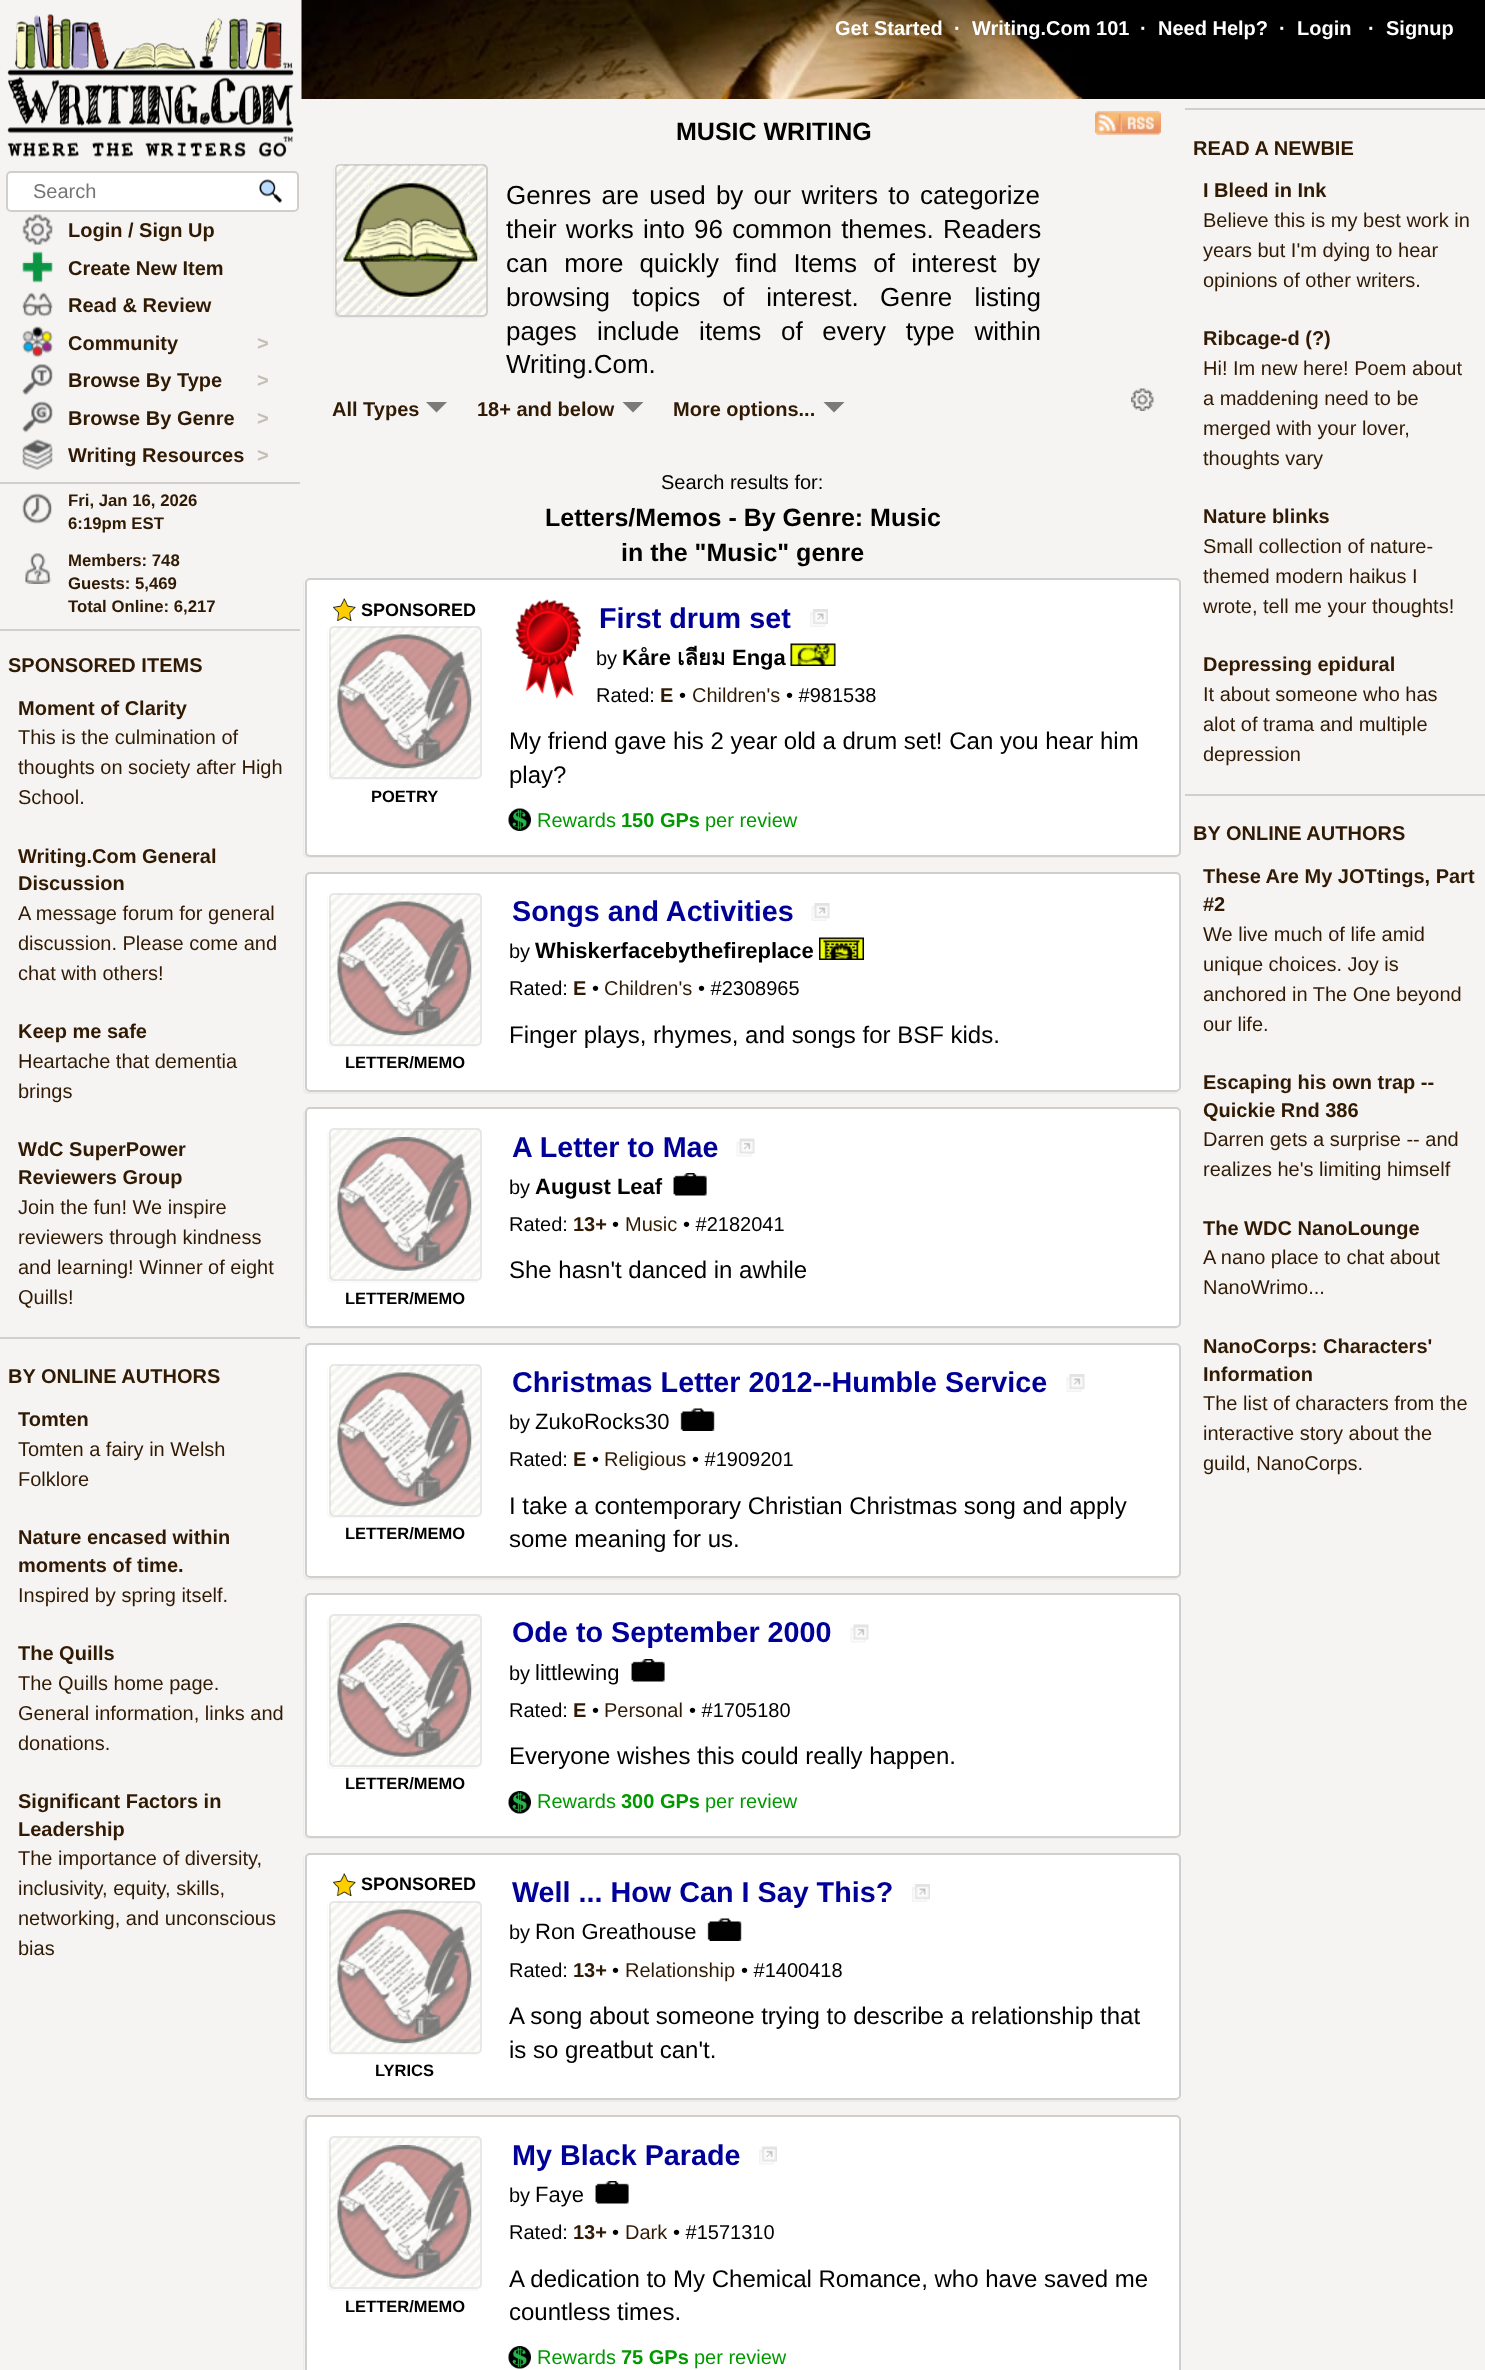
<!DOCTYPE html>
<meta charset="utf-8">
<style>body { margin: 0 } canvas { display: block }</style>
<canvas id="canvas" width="1485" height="2370"></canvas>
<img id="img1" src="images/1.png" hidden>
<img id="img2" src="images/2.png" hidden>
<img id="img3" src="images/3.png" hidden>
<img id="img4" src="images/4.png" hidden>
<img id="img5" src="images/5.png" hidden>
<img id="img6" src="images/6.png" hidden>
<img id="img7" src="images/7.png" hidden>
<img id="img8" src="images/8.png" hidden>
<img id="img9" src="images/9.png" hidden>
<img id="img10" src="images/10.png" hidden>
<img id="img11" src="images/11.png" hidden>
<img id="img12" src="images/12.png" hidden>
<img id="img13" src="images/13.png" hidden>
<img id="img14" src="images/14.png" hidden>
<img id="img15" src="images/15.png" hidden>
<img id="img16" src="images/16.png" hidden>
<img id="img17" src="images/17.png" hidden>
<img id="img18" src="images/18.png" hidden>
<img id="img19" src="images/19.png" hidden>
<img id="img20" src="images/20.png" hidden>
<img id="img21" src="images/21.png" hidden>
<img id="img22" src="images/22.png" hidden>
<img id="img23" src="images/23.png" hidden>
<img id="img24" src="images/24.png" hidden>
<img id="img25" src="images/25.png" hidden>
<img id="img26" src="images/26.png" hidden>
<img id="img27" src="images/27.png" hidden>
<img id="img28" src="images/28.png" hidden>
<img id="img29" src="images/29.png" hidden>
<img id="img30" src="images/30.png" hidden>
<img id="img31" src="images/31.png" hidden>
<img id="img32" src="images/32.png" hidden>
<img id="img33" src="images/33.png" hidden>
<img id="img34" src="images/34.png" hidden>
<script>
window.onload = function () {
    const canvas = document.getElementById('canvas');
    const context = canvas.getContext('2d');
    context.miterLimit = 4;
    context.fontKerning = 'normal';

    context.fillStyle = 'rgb(245, 244, 242)';
    context.fillRect(0, 0, 1485, 2370);
    context.fillStyle = 'rgb(0, 0, 0)';
    context.fillRect(1086, 0, 399, 99);
    context.drawImage(document.getElementById('img1'), 301, 0, 785, 99);
    context.drawImage(document.getElementById('img2'), 7, 14, 287, 144);
    context.fillStyle = 'rgb(255, 255, 255)';
    context.beginPath();
    context.roundRect(7, 172, 291, 39, 4);
    context.fill();
    context.strokeStyle = 'rgb(208, 207, 206)';
    context.lineWidth = 2;
    context.stroke();
    context.drawImage(document.getElementById('img3'), 259, 179, 23, 24);
    context.drawImage(document.getElementById('img4'), 22, 214, 31, 31);
    context.drawImage(document.getElementById('img5'), 22, 251, 31, 32);
    context.drawImage(document.getElementById('img6'), 22, 292, 31, 25);
    context.drawImage(document.getElementById('img7'), 22, 326, 31, 32);
    context.drawImage(document.getElementById('img8'), 22, 364, 31, 31);
    context.drawImage(document.getElementById('img9'), 22, 401, 31, 32);
    context.drawImage(document.getElementById('img10'), 22, 439, 31, 31);
    context.fillStyle = 'rgb(208, 207, 206)';
    context.fillRect(0, 482, 300, 2);
    context.drawImage(document.getElementById('img11'), 22, 493, 30, 31);
    context.drawImage(document.getElementById('img12'), 25, 553, 27, 31);
    context.fillRect(0, 629, 300, 2);
    context.fillRect(0, 1337, 300, 2);
    context.fillStyle = 'rgb(236, 235, 233)';
    context.beginPath();
    context.moveTo(335, 166);
    context.bezierCurveTo(334, 167, 333, 168, 333, 170);
    context.lineTo(333, 313);
    context.bezierCurveTo(333, 316, 335, 318, 338, 318);
    context.lineTo(481, 318);
    context.bezierCurveTo(483, 318, 484, 317, 485, 316);
    context.lineTo(483, 316);
    context.lineTo(339, 316);
    context.bezierCurveTo(337, 316, 334, 314, 334, 312);
    context.lineTo(334, 168);
    context.closePath();
    context.fill();
    context.fillStyle = 'rgb(255, 255, 255)';
    context.beginPath();
    context.roundRect(336, 165, 151, 151, 4);
    context.fill();
    context.stroke();
    context.drawImage(document.getElementById('img13'), 336, 165, 150, 150);
    context.drawImage(document.getElementById('img14'), 343, 183, 136, 116);
    context.drawImage(document.getElementById('img15'), 1095, 111, 66, 24);
    context.fillStyle = 'rgb(123, 122, 121)';
    context.beginPath();
    context.moveTo(426, 402);
    context.lineTo(447, 402);
    context.lineTo(436.5, 412.5);
    context.closePath();
    context.fill();
    context.beginPath();
    context.moveTo(622.5, 402);
    context.lineTo(643.5, 402);
    context.lineTo(633, 412.5);
    context.closePath();
    context.fill();
    context.beginPath();
    context.moveTo(823.5, 402);
    context.lineTo(844.5, 402);
    context.lineTo(834, 412.5);
    context.closePath();
    context.fill();
    context.drawImage(document.getElementById('img16'), 1131, 388, 23, 23);
    context.fillStyle = 'rgb(236, 235, 233)';
    context.beginPath();
    context.moveTo(305, 580);
    context.bezierCurveTo(304, 581, 303, 582, 303, 584);
    context.lineTo(303, 853);
    context.bezierCurveTo(303, 856, 305, 858, 308, 858);
    context.lineTo(1174, 858);
    context.bezierCurveTo(1176, 858, 1177, 857, 1178, 856);
    context.lineTo(1176, 856);
    context.lineTo(309, 856);
    context.bezierCurveTo(307, 856, 304, 854, 304, 852);
    context.lineTo(304, 582);
    context.closePath();
    context.fill();
    context.fillStyle = 'rgb(255, 255, 255)';
    context.beginPath();
    context.roundRect(306, 579, 874, 277, 4);
    context.fill();
    context.stroke();
    context.drawImage(document.getElementById('img17'), 333, 598, 23, 23);
    context.fillStyle = 'rgb(249, 249, 249)';
    context.beginPath();
    context.moveTo(329, 628);
    context.bezierCurveTo(328, 629, 327, 630, 327, 632);
    context.lineTo(327, 775);
    context.bezierCurveTo(327, 778, 329, 780, 332, 780);
    context.lineTo(475, 780);
    context.bezierCurveTo(477, 780, 478, 779, 479, 778);
    context.lineTo(477, 778);
    context.lineTo(333, 778);
    context.bezierCurveTo(331, 778, 328, 776, 328, 774);
    context.lineTo(328, 630);
    context.closePath();
    context.fill();
    context.fillStyle = 'rgb(255, 255, 255)';
    context.beginPath();
    context.roundRect(330, 627, 151, 151, 4);
    context.fill();
    context.strokeStyle = 'rgb(232, 231, 231)';
    context.stroke();
    context.drawImage(document.getElementById('img18'), 330, 627, 150, 150);
    context.drawImage(document.getElementById('img19'), 337, 634, 135, 135);
    context.drawImage(document.getElementById('img20'), 515, 599, 67, 100);
    context.drawImage(document.getElementById('img21'), 810, 609, 18, 18);
    context.drawImage(document.getElementById('img22'), 790, 643, 46, 23);
    context.drawImage(document.getElementById('img23'), 508, 808, 23, 23);
    context.fillStyle = 'rgb(236, 235, 233)';
    context.beginPath();
    context.moveTo(305, 874);
    context.bezierCurveTo(304, 875, 303, 876, 303, 878);
    context.lineTo(303, 1089);
    context.bezierCurveTo(303, 1092, 305, 1094, 308, 1094);
    context.lineTo(1174, 1094);
    context.bezierCurveTo(1176, 1094, 1178, 1093, 1178, 1091);
    context.lineTo(1176, 1092);
    context.lineTo(309, 1092);
    context.bezierCurveTo(307, 1092, 304, 1090, 304, 1088);
    context.lineTo(304, 876);
    context.closePath();
    context.fill();
    context.fillStyle = 'rgb(255, 255, 255)';
    context.beginPath();
    context.roundRect(306, 873, 874, 218, 4);
    context.fill();
    context.strokeStyle = 'rgb(208, 207, 206)';
    context.stroke();
    context.drawImage(document.getElementById('img24'), 811, 903, 19, 18);
    context.drawImage(document.getElementById('img25'), 819, 937, 45, 23);
    context.fillStyle = 'rgb(249, 249, 249)';
    context.beginPath();
    context.moveTo(329, 895);
    context.bezierCurveTo(328, 896, 327, 897, 327, 899);
    context.lineTo(327, 1042);
    context.bezierCurveTo(327, 1045, 329, 1047, 332, 1047);
    context.lineTo(475, 1047);
    context.bezierCurveTo(477, 1047, 478, 1046, 479, 1045);
    context.lineTo(477, 1046);
    context.lineTo(333, 1046);
    context.bezierCurveTo(331, 1046, 328, 1043, 328, 1041);
    context.lineTo(328, 897);
    context.closePath();
    context.fill();
    context.beginPath();
    context.roundRect(330, 894, 151, 151, 4);
    context.strokeStyle = 'rgb(232, 231, 231)';
    context.stroke();
    context.drawImage(document.getElementById('img18'), 330, 894, 150, 150);
    context.drawImage(document.getElementById('img19'), 337, 901, 135, 135);
    context.fillStyle = 'rgb(236, 235, 233)';
    context.beginPath();
    context.moveTo(305, 1110);
    context.bezierCurveTo(304, 1111, 303, 1113, 303, 1114);
    context.lineTo(303, 1324);
    context.bezierCurveTo(303, 1327, 305, 1329, 308, 1329);
    context.lineTo(1174, 1329);
    context.bezierCurveTo(1176, 1329, 1177, 1328, 1178, 1327);
    context.lineTo(1176, 1328);
    context.lineTo(309, 1328);
    context.bezierCurveTo(307, 1328, 304, 1325, 304, 1323);
    context.closePath();
    context.fill();
    context.fillStyle = 'rgb(255, 255, 255)';
    context.beginPath();
    context.roundRect(306, 1108, 874, 219, 4);
    context.fill();
    context.strokeStyle = 'rgb(208, 207, 206)';
    context.stroke();
    context.drawImage(document.getElementById('img26'), 736, 1138, 19, 19);
    context.drawImage(document.getElementById('img27'), 673, 1173, 34, 23);
    context.fillStyle = 'rgb(249, 249, 249)';
    context.beginPath();
    context.moveTo(329, 1131);
    context.bezierCurveTo(328, 1132, 327, 1134, 327, 1135);
    context.lineTo(327, 1278);
    context.bezierCurveTo(327, 1281, 329, 1283, 332, 1283);
    context.lineTo(475, 1283);
    context.bezierCurveTo(477, 1283, 479, 1282, 479, 1280);
    context.lineTo(477, 1281);
    context.lineTo(357, 1281);
    context.bezierCurveTo(348, 1281, 329, 1285, 328, 1276);
    context.closePath();
    context.fill();
    context.fillStyle = 'rgb(255, 255, 255)';
    context.beginPath();
    context.roundRect(330, 1129, 151, 151, 4);
    context.fill();
    context.strokeStyle = 'rgb(232, 231, 231)';
    context.stroke();
    context.drawImage(document.getElementById('img28'), 330, 1130, 150, 149);
    context.drawImage(document.getElementById('img29'), 337, 1137, 135, 134);
    context.fillStyle = 'rgb(236, 235, 233)';
    context.beginPath();
    context.moveTo(305, 1345);
    context.bezierCurveTo(304, 1346, 303, 1347, 303, 1349);
    context.lineTo(303, 1575);
    context.bezierCurveTo(303, 1578, 305, 1580, 308, 1580);
    context.lineTo(1174, 1580);
    context.bezierCurveTo(1176, 1580, 1178, 1579, 1178, 1577);
    context.lineTo(1176, 1578);
    context.lineTo(309, 1578);
    context.bezierCurveTo(307, 1578, 304, 1576, 304, 1574);
    context.lineTo(304, 1347);
    context.closePath();
    context.fill();
    context.fillStyle = 'rgb(255, 255, 255)';
    context.beginPath();
    context.roundRect(306, 1344, 874, 233, 4);
    context.fill();
    context.strokeStyle = 'rgb(208, 207, 206)';
    context.stroke();
    context.fillStyle = 'rgb(249, 249, 249)';
    context.beginPath();
    context.moveTo(329, 1366);
    context.bezierCurveTo(328, 1367, 327, 1368, 327, 1370);
    context.lineTo(327, 1513);
    context.bezierCurveTo(327, 1516, 329, 1518, 332, 1518);
    context.lineTo(475, 1518);
    context.bezierCurveTo(477, 1518, 478, 1517, 479, 1516);
    context.lineTo(477, 1516);
    context.lineTo(333, 1516);
    context.bezierCurveTo(331, 1516, 328, 1514, 328, 1512);
    context.lineTo(328, 1368);
    context.closePath();
    context.fill();
    context.fillStyle = 'rgb(255, 255, 255)';
    context.beginPath();
    context.roundRect(330, 1365, 151, 151, 4);
    context.fill();
    context.strokeStyle = 'rgb(232, 231, 231)';
    context.stroke();
    context.drawImage(document.getElementById('img18'), 330, 1365, 150, 150);
    context.drawImage(document.getElementById('img19'), 337, 1372, 135, 135);
    context.drawImage(document.getElementById('img24'), 1066, 1374, 19, 18);
    context.drawImage(document.getElementById('img30'), 680, 1408, 35, 23);
    context.fillStyle = 'rgb(236, 235, 233)';
    context.beginPath();
    context.moveTo(305, 1596);
    context.bezierCurveTo(304, 1597, 303, 1599, 303, 1600);
    context.lineTo(303, 1834);
    context.bezierCurveTo(303, 1837, 305, 1839, 308, 1839);
    context.lineTo(1174, 1839);
    context.bezierCurveTo(1176, 1839, 1177, 1838, 1178, 1837);
    context.lineTo(1176, 1838);
    context.lineTo(309, 1838);
    context.bezierCurveTo(307, 1838, 304, 1835, 304, 1833);
    context.closePath();
    context.fill();
    context.fillStyle = 'rgb(255, 255, 255)';
    context.beginPath();
    context.roundRect(306, 1594, 874, 243, 4);
    context.fill();
    context.strokeStyle = 'rgb(208, 207, 206)';
    context.stroke();
    context.fillStyle = 'rgb(249, 249, 249)';
    context.beginPath();
    context.moveTo(329, 1617);
    context.bezierCurveTo(328, 1618, 327, 1620, 327, 1621);
    context.lineTo(327, 1764);
    context.bezierCurveTo(327, 1767, 329, 1769, 332, 1769);
    context.lineTo(475, 1769);
    context.bezierCurveTo(477, 1769, 479, 1768, 479, 1766);
    context.lineTo(477, 1767);
    context.lineTo(357, 1767);
    context.bezierCurveTo(348, 1767, 329, 1771, 328, 1762);
    context.closePath();
    context.fill();
    context.fillStyle = 'rgb(255, 255, 255)';
    context.beginPath();
    context.roundRect(330, 1615, 151, 151, 4);
    context.fill();
    context.strokeStyle = 'rgb(232, 231, 231)';
    context.stroke();
    context.drawImage(document.getElementById('img28'), 330, 1616, 150, 149);
    context.drawImage(document.getElementById('img29'), 337, 1623, 135, 134);
    context.drawImage(document.getElementById('img31'), 850, 1624, 19, 19);
    context.drawImage(document.getElementById('img27'), 631, 1659, 34, 23);
    context.drawImage(document.getElementById('img32'), 508, 1791, 23, 23);
    context.fillStyle = 'rgb(236, 235, 233)';
    context.beginPath();
    context.moveTo(305, 1855);
    context.bezierCurveTo(304, 1856, 303, 1857, 303, 1859);
    context.lineTo(303, 2097);
    context.bezierCurveTo(303, 2100, 305, 2102, 308, 2102);
    context.lineTo(1174, 2102);
    context.bezierCurveTo(1176, 2102, 1178, 2101, 1178, 2099);
    context.lineTo(1176, 2100);
    context.lineTo(309, 2100);
    context.bezierCurveTo(307, 2100, 304, 2098, 304, 2096);
    context.lineTo(304, 1857);
    context.closePath();
    context.fill();
    context.fillStyle = 'rgb(255, 255, 255)';
    context.beginPath();
    context.roundRect(306, 1854, 874, 245, 4);
    context.fill();
    context.strokeStyle = 'rgb(208, 207, 206)';
    context.stroke();
    context.drawImage(document.getElementById('img17'), 333, 1873, 23, 23);
    context.fillStyle = 'rgb(249, 249, 249)';
    context.beginPath();
    context.moveTo(329, 1903);
    context.bezierCurveTo(328, 1904, 327, 1905, 327, 1907);
    context.lineTo(327, 2050);
    context.bezierCurveTo(327, 2053, 329, 2055, 332, 2055);
    context.lineTo(475, 2055);
    context.bezierCurveTo(477, 2055, 478, 2054, 479, 2053);
    context.lineTo(477, 2054);
    context.lineTo(333, 2054);
    context.bezierCurveTo(331, 2054, 328, 2051, 328, 2049);
    context.lineTo(328, 1905);
    context.closePath();
    context.fill();
    context.beginPath();
    context.roundRect(330, 1902, 151, 151, 4);
    context.strokeStyle = 'rgb(232, 231, 231)';
    context.stroke();
    context.drawImage(document.getElementById('img18'), 330, 1902, 150, 150);
    context.drawImage(document.getElementById('img19'), 337, 1909, 135, 135);
    context.drawImage(document.getElementById('img21'), 912, 1884, 18, 18);
    context.drawImage(document.getElementById('img33'), 707, 1918, 35, 23);
    context.fillStyle = 'rgb(236, 235, 233)';
    context.beginPath();
    context.moveTo(305, 2118);
    context.bezierCurveTo(304, 2119, 303, 2121, 303, 2122);
    context.lineTo(303, 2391);
    context.bezierCurveTo(303, 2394, 305, 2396, 308, 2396);
    context.lineTo(1174, 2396);
    context.bezierCurveTo(1176, 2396, 1178, 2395, 1178, 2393);
    context.lineTo(1176, 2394);
    context.lineTo(309, 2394);
    context.bezierCurveTo(307, 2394, 304, 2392, 304, 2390);
    context.closePath();
    context.fill();
    context.fillStyle = 'rgb(255, 255, 255)';
    context.beginPath();
    context.roundRect(306, 2116, 874, 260, 4);
    context.fill();
    context.strokeStyle = 'rgb(208, 207, 206)';
    context.stroke();
    context.fillStyle = 'rgb(249, 249, 249)';
    context.beginPath();
    context.moveTo(329, 2139);
    context.bezierCurveTo(328, 2140, 327, 2142, 327, 2143);
    context.lineTo(327, 2286);
    context.bezierCurveTo(327, 2289, 329, 2291, 332, 2291);
    context.lineTo(475, 2291);
    context.bezierCurveTo(477, 2291, 479, 2290, 479, 2288);
    context.lineTo(477, 2289);
    context.lineTo(357, 2289);
    context.bezierCurveTo(348, 2289, 329, 2293, 328, 2284);
    context.closePath();
    context.fill();
    context.fillStyle = 'rgb(255, 255, 255)';
    context.beginPath();
    context.roundRect(330, 2137, 151, 151, 4);
    context.fill();
    context.strokeStyle = 'rgb(232, 231, 231)';
    context.stroke();
    context.drawImage(document.getElementById('img28'), 330, 2138, 150, 149);
    context.drawImage(document.getElementById('img29'), 337, 2145, 135, 134);
    context.drawImage(document.getElementById('img34'), 759, 2146, 18, 19);
    context.drawImage(document.getElementById('img27'), 595, 2181, 34, 23);
    context.drawImage(document.getElementById('img32'), 508, 2346, 23, 23);
    context.fillStyle = 'rgb(208, 207, 206)';
    context.fillRect(1185, 108, 300, 2);
    context.fillRect(1185, 794, 300, 2);
    context.font = 'bold 20px Liberation Sans';
    context.fillStyle = 'rgb(255, 255, 255)';
    context.fillText('Get Started', 835, 35);
    context.fillText('·', 954, 35);
    context.fillText('Writing.Com 101', 972, 35);
    context.fillText('·', 1140, 35);
    context.fillText('Need Help?', 1158, 35);
    context.fillText('·', 1279, 35);
    context.fillText('Login', 1297, 35);
    context.fillText('·', 1368, 35);
    context.fillText('Signup', 1386, 35);
    context.font = '20px Liberation Sans';
    context.fillStyle = 'rgb(117, 117, 117)';
    context.fillText('Search', 33, 198);
    context.font = 'bold 20px Liberation Sans';
    context.fillStyle = 'rgb(49, 26, 3)';
    context.fillText('Login / Sign Up', 68, 237);
    context.fillText('Create New Item', 68, 275);
    context.fillText('Read & Review', 68, 312);
    context.fillText('Community', 68, 350);
    context.fillStyle = 'rgb(196, 190, 182)';
    context.fillText('>', 257, 350);
    context.fillStyle = 'rgb(49, 26, 3)';
    context.fillText('Browse By Type', 68, 387);
    context.fillStyle = 'rgb(196, 190, 182)';
    context.fillText('>', 257, 387);
    context.fillStyle = 'rgb(49, 26, 3)';
    context.fillText('Browse By Genre', 68, 425);
    context.fillStyle = 'rgb(196, 190, 182)';
    context.fillText('>', 257, 425);
    context.fillStyle = 'rgb(49, 26, 3)';
    context.fillText('Writing Resources', 68, 462);
    context.fillStyle = 'rgb(196, 190, 182)';
    context.fillText('>', 257, 462);
    context.font = 'bold 16.75px Liberation Sans';
    context.fillStyle = 'rgb(49, 26, 3)';
    context.fillText('Fri, Jan 16, 2026', 68, 506);
    context.fillText('6:19pm EST', 68, 529);
    context.fillText('Members: 748', 68, 566);
    context.fillText('Guests: 5,469', 68, 589);
    context.fillText('Total Online: 6,217', 68, 612);
    context.font = 'bold 20px Liberation Sans';
    context.fillText('SPONSORED ITEMS', 8, 672);
    context.fillText('Moment of Clarity', 18, 715);
    context.font = '20px Liberation Sans';
    context.fillText('This is the culmination of', 18, 744);
    context.fillText('thoughts on society after High', 18, 774);
    context.fillText('School.', 18, 804);
    context.font = 'bold 20px Liberation Sans';
    context.fillText('Writing.Com General', 18, 863);
    context.fillText('Discussion', 18, 890);
    context.font = '20px Liberation Sans';
    context.fillText('A message forum for general', 18, 920);
    context.fillText('discussion. Please come and', 18, 950);
    context.fillText('chat with others!', 18, 980);
    context.font = 'bold 20px Liberation Sans';
    context.fillText('Keep me safe', 18, 1038);
    context.font = '20px Liberation Sans';
    context.fillText('Heartache that dementia', 18, 1068);
    context.fillText('brings', 18, 1098);
    context.font = 'bold 20px Liberation Sans';
    context.fillText('WdC SuperPower', 18, 1156);
    context.fillText('Reviewers Group', 18, 1184);
    context.font = '20px Liberation Sans';
    context.fillText('Join the fun! We inspire', 18, 1214);
    context.fillText('reviewers through kindness', 18, 1244);
    context.fillText('and learning! Winner of eight', 18, 1274);
    context.fillText('Quills!', 18, 1304);
    context.font = 'bold 20px Liberation Sans';
    context.fillText('BY ONLINE AUTHORS', 8, 1383);
    context.fillText('Tomten', 18, 1426);
    context.font = '20px Liberation Sans';
    context.fillText('Tomten a fairy in Welsh', 18, 1456);
    context.fillText('Folklore', 18, 1486);
    context.font = 'bold 20px Liberation Sans';
    context.fillText('Nature encased within', 18, 1544);
    context.fillText('moments of time.', 18, 1572);
    context.font = '20px Liberation Sans';
    context.fillText('Inspired by spring itself.', 18, 1602);
    context.font = 'bold 20px Liberation Sans';
    context.fillText('The Quills', 18, 1660);
    context.font = '20px Liberation Sans';
    context.fillText('The Quills home page.', 18, 1690);
    context.fillText('General information, links and', 18, 1720);
    context.fillText('donations.', 18, 1750);
    context.font = 'bold 20px Liberation Sans';
    context.fillText('Significant Factors in', 18, 1808);
    context.fillText('Leadership', 18, 1836);
    context.font = '20px Liberation Sans';
    context.fillText('The importance of diversity,', 18, 1865);
    context.fillText('inclusivity, equity, skills,', 18, 1895);
    context.fillText('networking, and unconscious', 18, 1925);
    context.fillText('bias', 18, 1955);
    context.font = 'bold 25px Liberation Sans';
    context.fillStyle = 'rgb(0, 0, 0)';
    context.fillText('MUSIC WRITING', 676, 140);
    context.wordSpacing = '3px';
    context.font = '26px Liberation Sans';
    context.fillText('Genres are used by our writers to categorize', 506, 204);
    context.wordSpacing = '2px';
    context.fillText('their works into 96 common themes.', 506, 238);
    context.wordSpacing = '0px';
    context.fillText('Readers', 943, 238);
    context.wordSpacing = '9px';
    context.fillText('can more quickly find Items of interest by', 506, 272);
    context.wordSpacing = '15px';
    context.fillText('browsing topics of interest.', 506, 306);
    context.fillText('Genre listing', 880, 306);
    context.wordSpacing = '0px';
    context.fillText('pages', 506, 340);
    context.wordSpacing = '12.5px';
    context.fillText('include items of every type within', 597, 340);
    context.wordSpacing = '0px';
    context.fillText('Writing.Com.', 506, 373);
    context.font = 'bold 20px Liberation Sans';
    context.fillStyle = 'rgb(49, 26, 3)';
    context.fillText('All Types', 332, 416);
    context.fillText('18+ and below', 477, 416);
    context.fillText('More options...', 673, 416);
    context.font = '20px Liberation Sans';
    context.fillStyle = 'rgb(0, 0, 0)';
    context.fillText('Search results for:', 661, 489);
    context.font = 'bold 25px Liberation Sans';
    context.fillText('Letters/Memos - By Genre: Music', 545, 526);
    context.fillText('in the "Music" genre', 621, 561);
    context.font = 'bold 18px Liberation Sans';
    context.fillText('SPONSORED', 361, 616);
    context.font = 'bold 16.5px Liberation Sans';
    context.fillText('POETRY', 371, 802);
    context.font = 'bold 28.75px Liberation Sans';
    context.fillStyle = 'rgb(0, 0, 153)';
    context.fillText('First drum set', 599, 628);
    context.font = '20px Liberation Sans';
    context.fillStyle = 'rgb(0, 0, 0)';
    context.fillText('by', 596, 665);
    context.font = 'bold 22px Liberation Sans';
    context.fillText('Kåre', 622, 665);
    context.font = 'bold 22px Loma';
    context.fillText('เลียม', 677, 665);
    context.font = 'bold 22px Liberation Sans';
    context.fillText('Enga', 732, 665);
    context.font = '20px Liberation Sans';
    context.fillText('Rated:', 596, 702);
    context.font = 'bold 20px Liberation Sans';
    context.fillStyle = 'rgb(49, 26, 3)';
    context.fillText('E', 660, 702);
    context.font = '20px Liberation Sans';
    context.fillStyle = 'rgb(0, 0, 0)';
    context.fillText('•', 679, 702);
    context.fillStyle = 'rgb(49, 26, 3)';
    context.fillText('Children\'s', 692, 702);
    context.fillStyle = 'rgb(0, 0, 0)';
    context.fillText('• #981538', 786, 702);
    context.font = '24px Liberation Sans';
    context.fillText('My friend gave his 2 year old a drum set! Can you hear him', 509, 749);
    context.fillText('play?', 509, 783);
    context.font = '20px Liberation Sans';
    context.fillStyle = 'rgb(0, 153, 0)';
    context.fillText('Rewards', 537, 827);
    context.font = 'bold 20px Liberation Sans';
    context.fillText('150 GPs', 621, 827);
    context.font = '20px Liberation Sans';
    context.fillText('per review', 705, 827);
    context.font = 'bold 28.75px Liberation Sans';
    context.fillStyle = 'rgb(0, 0, 153)';
    context.fillText('Songs and Activities', 512, 921);
    context.font = '20px Liberation Sans';
    context.fillStyle = 'rgb(0, 0, 0)';
    context.fillText('by', 509, 958);
    context.font = 'bold 22px Liberation Sans';
    context.fillText('Whiskerfacebythefireplace', 535, 958);
    context.font = '20px Liberation Sans';
    context.fillText('Rated:', 509, 995);
    context.font = 'bold 20px Liberation Sans';
    context.fillStyle = 'rgb(49, 26, 3)';
    context.fillText('E', 573, 995);
    context.font = '20px Liberation Sans';
    context.fillStyle = 'rgb(0, 0, 0)';
    context.fillText('•', 592, 995);
    context.fillStyle = 'rgb(49, 26, 3)';
    context.fillText('Children\'s', 604, 995);
    context.fillStyle = 'rgb(0, 0, 0)';
    context.fillText('• #2308965', 698, 995);
    context.font = '24px Liberation Sans';
    context.fillText('Finger plays, rhymes, and songs for BSF kids.', 509, 1043);
    context.font = 'bold 16.5px Liberation Sans';
    context.fillText('LETTER/MEMO', 345, 1068);
    context.font = 'bold 28.75px Liberation Sans';
    context.fillStyle = 'rgb(0, 0, 153)';
    context.fillText('A Letter to Mae', 512, 1157);
    context.font = '20px Liberation Sans';
    context.fillStyle = 'rgb(0, 0, 0)';
    context.fillText('by', 509, 1194);
    context.font = 'bold 22px Liberation Sans';
    context.fillText('August Leaf', 535, 1194);
    context.font = '20px Liberation Sans';
    context.fillText('Rated:', 509, 1231);
    context.font = 'bold 20px Liberation Sans';
    context.fillStyle = 'rgb(49, 26, 3)';
    context.fillText('13+', 573, 1231);
    context.font = '20px Liberation Sans';
    context.fillStyle = 'rgb(0, 0, 0)';
    context.fillText('•', 612, 1231);
    context.fillStyle = 'rgb(49, 26, 3)';
    context.fillText('Music', 625, 1231);
    context.fillStyle = 'rgb(0, 0, 0)';
    context.fillText('• #2182041', 683, 1231);
    context.font = '24px Liberation Sans';
    context.fillText('She hasn\'t danced in awhile', 509, 1278);
    context.font = 'bold 16.5px Liberation Sans';
    context.fillText('LETTER/MEMO', 345, 1304);
    context.fillText('LETTER/MEMO', 345, 1539);
    context.font = 'bold 28.75px Liberation Sans';
    context.fillStyle = 'rgb(0, 0, 153)';
    context.fillText('Christmas Letter 2012--Humble Service', 512, 1392);
    context.font = '20px Liberation Sans';
    context.fillStyle = 'rgb(0, 0, 0)';
    context.fillText('by', 509, 1429);
    context.font = '22px Liberation Sans';
    context.fillText('ZukoRocks30', 535, 1429);
    context.font = '20px Liberation Sans';
    context.fillText('Rated:', 509, 1466);
    context.font = 'bold 20px Liberation Sans';
    context.fillStyle = 'rgb(49, 26, 3)';
    context.fillText('E', 573, 1466);
    context.font = '20px Liberation Sans';
    context.fillStyle = 'rgb(0, 0, 0)';
    context.fillText('•', 592, 1466);
    context.fillStyle = 'rgb(49, 26, 3)';
    context.fillText('Religious', 604, 1466);
    context.fillStyle = 'rgb(0, 0, 0)';
    context.fillText('• #1909201', 692, 1466);
    context.font = '24px Liberation Sans';
    context.fillText('I take a contemporary Christian Christmas song and apply', 509, 1514);
    context.fillText('some meaning for us.', 509, 1547);
    context.font = 'bold 16.5px Liberation Sans';
    context.fillText('LETTER/MEMO', 345, 1789);
    context.font = 'bold 28.75px Liberation Sans';
    context.fillStyle = 'rgb(0, 0, 153)';
    context.fillText('Ode to September 2000', 512, 1642);
    context.font = '20px Liberation Sans';
    context.fillStyle = 'rgb(0, 0, 0)';
    context.fillText('by', 509, 1680);
    context.font = '22px Liberation Sans';
    context.fillText('littlewing', 535, 1680);
    context.font = '20px Liberation Sans';
    context.fillText('Rated:', 509, 1717);
    context.font = 'bold 20px Liberation Sans';
    context.fillStyle = 'rgb(49, 26, 3)';
    context.fillText('E', 573, 1717);
    context.font = '20px Liberation Sans';
    context.fillStyle = 'rgb(0, 0, 0)';
    context.fillText('•', 592, 1717);
    context.fillStyle = 'rgb(49, 26, 3)';
    context.fillText('Personal', 604, 1717);
    context.fillStyle = 'rgb(0, 0, 0)';
    context.fillText('• #1705180', 689, 1717);
    context.font = '24px Liberation Sans';
    context.fillText('Everyone wishes this could really happen.', 509, 1764);
    context.font = '20px Liberation Sans';
    context.fillStyle = 'rgb(0, 153, 0)';
    context.fillText('Rewards', 537, 1808);
    context.font = 'bold 20px Liberation Sans';
    context.fillText('300 GPs', 621, 1808);
    context.font = '20px Liberation Sans';
    context.fillText('per review', 705, 1808);
    context.font = 'bold 18px Liberation Sans';
    context.fillStyle = 'rgb(0, 0, 0)';
    context.fillText('SPONSORED', 361, 1890);
    context.font = 'bold 16.5px Liberation Sans';
    context.fillText('LYRICS', 375, 2076);
    context.font = 'bold 28.75px Liberation Sans';
    context.fillStyle = 'rgb(0, 0, 153)';
    context.fillText('Well ... How Can I Say This?', 512, 1902);
    context.font = '20px Liberation Sans';
    context.fillStyle = 'rgb(0, 0, 0)';
    context.fillText('by', 509, 1939);
    context.font = '22px Liberation Sans';
    context.fillText('Ron Greathouse', 535, 1939);
    context.font = '20px Liberation Sans';
    context.fillText('Rated:', 509, 1977);
    context.font = 'bold 20px Liberation Sans';
    context.fillStyle = 'rgb(49, 26, 3)';
    context.fillText('13+', 573, 1977);
    context.font = '20px Liberation Sans';
    context.fillStyle = 'rgb(0, 0, 0)';
    context.fillText('•', 612, 1977);
    context.fillStyle = 'rgb(49, 26, 3)';
    context.fillText('Relationship', 625, 1977);
    context.fillStyle = 'rgb(0, 0, 0)';
    context.fillText('• #1400418', 741, 1977);
    context.font = '24px Liberation Sans';
    context.fillText('A song about someone trying to describe a relationship that', 509, 2024);
    context.fillText('is so greatbut can\'t.', 509, 2058);
    context.font = 'bold 16.5px Liberation Sans';
    context.fillText('LETTER/MEMO', 345, 2312);
    context.font = 'bold 28.75px Liberation Sans';
    context.fillStyle = 'rgb(0, 0, 153)';
    context.fillText('My Black Parade', 512, 2165);
    context.font = '20px Liberation Sans';
    context.fillStyle = 'rgb(0, 0, 0)';
    context.fillText('by', 509, 2202);
    context.font = '22px Liberation Sans';
    context.fillText('Faye', 535, 2202);
    context.font = '20px Liberation Sans';
    context.fillText('Rated:', 509, 2239);
    context.font = 'bold 20px Liberation Sans';
    context.fillStyle = 'rgb(49, 26, 3)';
    context.fillText('13+', 573, 2239);
    context.font = '20px Liberation Sans';
    context.fillStyle = 'rgb(0, 0, 0)';
    context.fillText('•', 612, 2239);
    context.fillStyle = 'rgb(49, 26, 3)';
    context.fillText('Dark', 625, 2239);
    context.fillStyle = 'rgb(0, 0, 0)';
    context.fillText('• #1571310', 673, 2239);
    context.font = '24px Liberation Sans';
    context.fillText('A dedication to My Chemical Romance, who have saved me', 509, 2287);
    context.fillText('countless times.', 509, 2320);
    context.font = '20px Liberation Sans';
    context.fillStyle = 'rgb(0, 153, 0)';
    context.fillText('Rewards', 537, 2364);
    context.font = 'bold 20px Liberation Sans';
    context.fillText('75 GPs', 621, 2364);
    context.font = '20px Liberation Sans';
    context.fillText('per review', 694, 2364);
    context.font = 'bold 20px Liberation Sans';
    context.fillStyle = 'rgb(49, 26, 3)';
    context.fillText('READ A NEWBIE', 1193, 155);
    context.fillText('I Bleed in Ink', 1203, 197);
    context.font = '20px Liberation Sans';
    context.fillText('Believe this is my best work in', 1203, 227);
    context.fillText('years but I\'m dying to hear', 1203, 257);
    context.fillText('opinions of other writers.', 1203, 287);
    context.font = 'bold 20px Liberation Sans';
    context.fillText('Ribcage-d (?)', 1203, 345);
    context.font = '20px Liberation Sans';
    context.fillText('Hi! Im new here! Poem about', 1203, 375);
    context.fillText('a maddening need to be', 1203, 405);
    context.fillText('merged with your lover,', 1203, 435);
    context.fillText('thoughts vary', 1203, 465);
    context.font = 'bold 20px Liberation Sans';
    context.fillText('Nature blinks', 1203, 523);
    context.font = '20px Liberation Sans';
    context.fillText('Small collection of nature-', 1203, 553);
    context.fillText('themed modern haikus I', 1203, 583);
    context.fillText('wrote, tell me your thoughts!', 1203, 613);
    context.font = 'bold 20px Liberation Sans';
    context.fillText('Depressing epidural', 1203, 671);
    context.font = '20px Liberation Sans';
    context.fillText('It about someone who has', 1203, 701);
    context.fillText('alot of trama and multiple', 1203, 731);
    context.fillText('depression', 1203, 761);
    context.font = 'bold 20px Liberation Sans';
    context.fillText('BY ONLINE AUTHORS', 1193, 840);
    context.fillText('These Are My JOTtings, Part', 1203, 883);
    context.fillText('#2', 1203, 911);
    context.font = '20px Liberation Sans';
    context.fillText('We live much of life amid', 1203, 941);
    context.fillText('unique choices. Joy is', 1203, 971);
    context.fillText('anchored in The One beyond', 1203, 1001);
    context.fillText('our life.', 1203, 1031);
    context.font = 'bold 20px Liberation Sans';
    context.fillText('Escaping his own trap --', 1203, 1089);
    context.fillText('Quickie Rnd 386', 1203, 1117);
    context.font = '20px Liberation Sans';
    context.fillText('Darren gets a surprise -- and', 1203, 1146);
    context.fillText('realizes he\'s limiting himself', 1203, 1176);
    context.font = 'bold 20px Liberation Sans';
    context.fillText('The WDC NanoLounge', 1203, 1235);
    context.font = '20px Liberation Sans';
    context.fillText('A nano place to chat about', 1203, 1264);
    context.fillText('NanoWrimo...', 1203, 1294);
    context.font = 'bold 20px Liberation Sans';
    context.fillText('NanoCorps: Characters\'', 1203, 1353);
    context.fillText('Information', 1203, 1381);
    context.font = '20px Liberation Sans';
    context.fillText('The list of characters from the', 1203, 1410);
    context.fillText('interactive story about the', 1203, 1440);
    context.fillText('guild, NanoCorps.', 1203, 1470);
};
</script>
